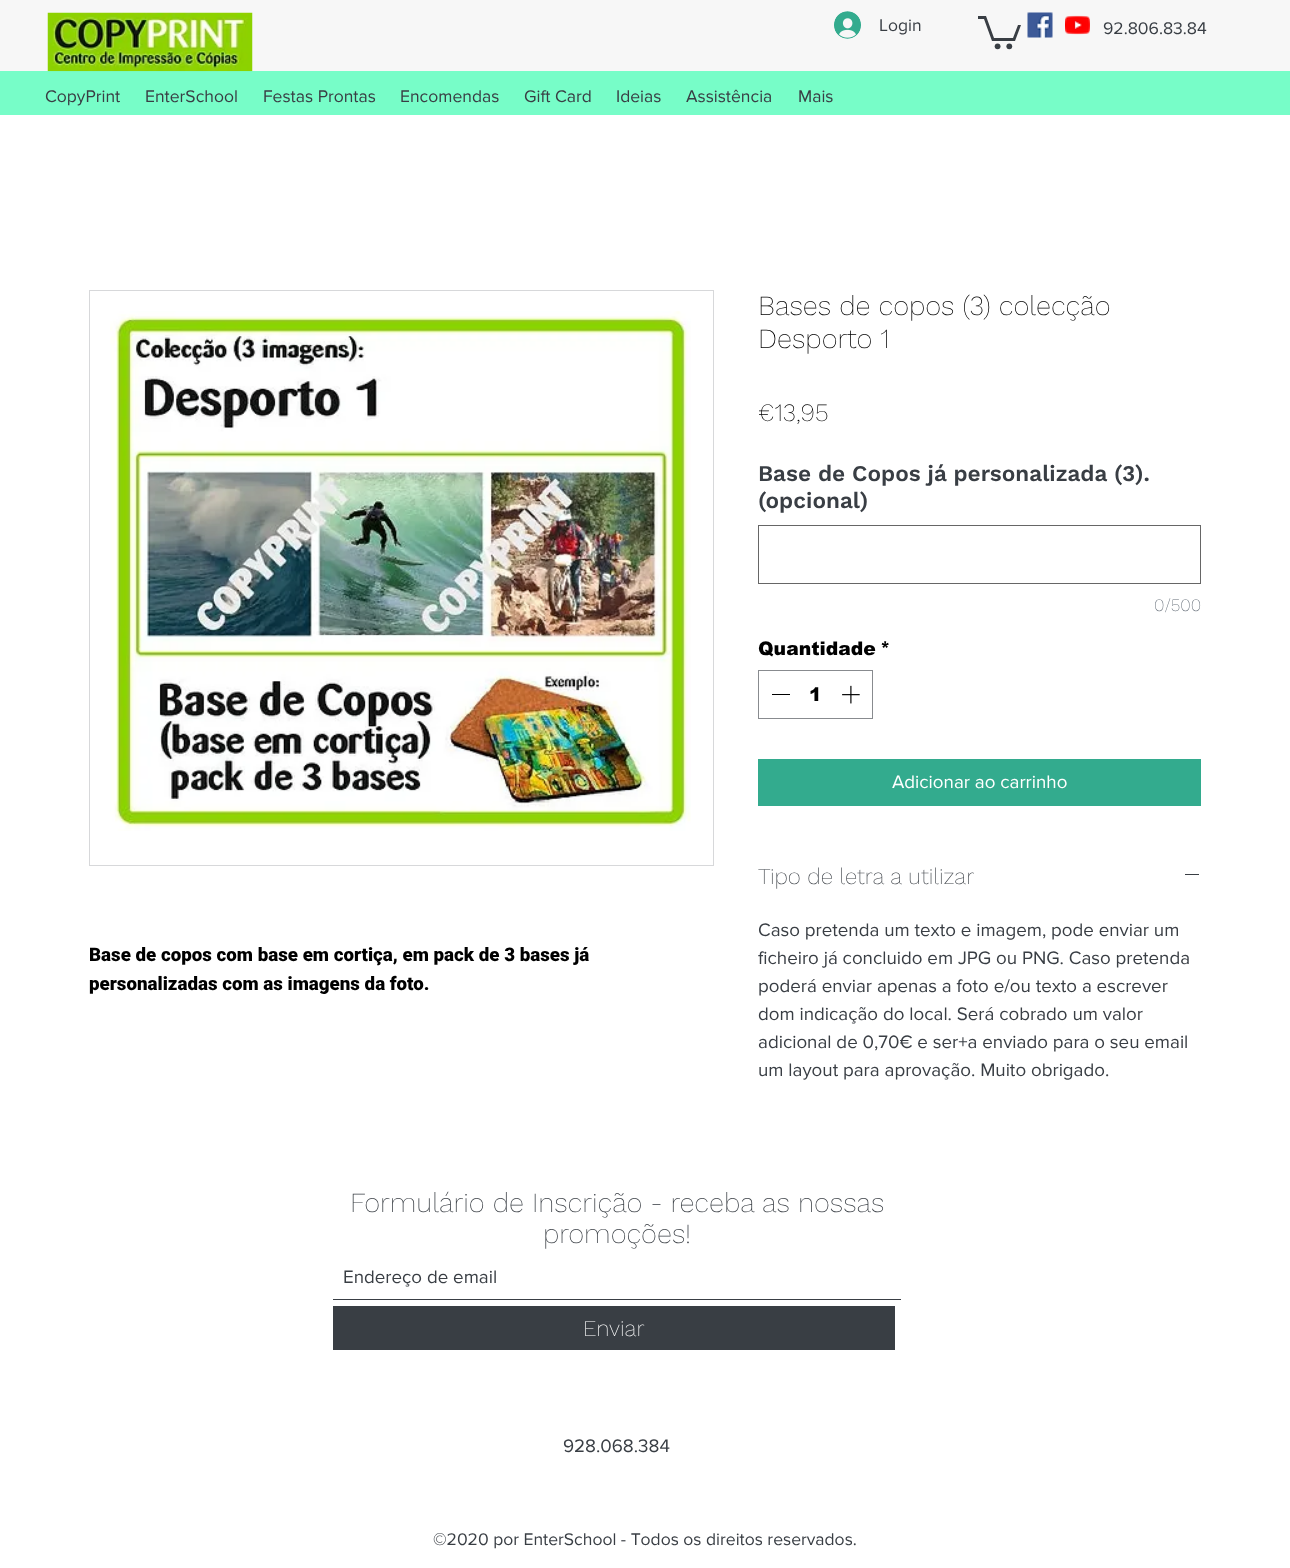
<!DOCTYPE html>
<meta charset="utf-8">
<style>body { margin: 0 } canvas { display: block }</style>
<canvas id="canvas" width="1290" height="1568"></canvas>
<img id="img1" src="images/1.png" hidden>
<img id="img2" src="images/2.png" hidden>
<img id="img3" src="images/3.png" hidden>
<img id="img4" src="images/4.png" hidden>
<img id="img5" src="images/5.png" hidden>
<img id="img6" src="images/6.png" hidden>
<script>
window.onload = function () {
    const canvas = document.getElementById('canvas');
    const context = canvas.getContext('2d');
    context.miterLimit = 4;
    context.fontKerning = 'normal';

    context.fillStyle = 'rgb(255, 255, 255)';
    context.fillRect(0, 0, 1290, 1568);
    context.fillStyle = 'rgb(247, 247, 247)';
    context.fillRect(0, 0, 1290, 71);
    context.fillStyle = 'rgb(119, 253, 200)';
    context.fillRect(0, 71, 1290, 44);
    context.drawImage(document.getElementById('img1'), 47, 12, 206, 60);
    context.drawImage(document.getElementById('img2'), 834, 11, 27, 28);
    context.fillStyle = 'rgb(57, 62, 68)';
    context.beginPath();
    context.moveTo(1021, 25);
    context.lineTo(1015, 41);
    context.lineTo(992, 41);
    context.lineTo(984, 19);
    context.lineTo(978, 19);
    context.lineTo(978, 16);
    context.lineTo(986, 16);
    context.lineTo(994, 38);
    context.lineTo(1013, 38);
    context.lineTo(1018, 25);
    context.fill();
    context.beginPath();
    context.arc(1009.3, 46.3, 2.9, 0, 2 * Math.PI);
    context.fill();
    context.beginPath();
    context.arc(997.6, 46.3, 2.9, 0, 2 * Math.PI);
    context.fill();
    context.drawImage(document.getElementById('img3'), 1027, 12, 26, 26);
    context.drawImage(document.getElementById('img4'), 1065, 15, 25, 20);
    context.strokeStyle = 'rgb(215, 216, 218)';
    context.strokeRect(89.5, 290.5, 624, 575);
    context.drawImage(document.getElementById('img5'), 110, 311, 581, 520);
    context.strokeStyle = 'rgb(102, 102, 102)';
    context.strokeRect(758.5, 525.5, 442, 58);
    context.strokeStyle = 'rgb(136, 139, 143)';
    context.strokeRect(758.5, 670.5, 114, 48);
    context.fillStyle = 'rgb(0, 0, 0)';
    context.fillRect(772, 694, 18, 1);
    context.drawImage(document.getElementById('img6'), 842, 685, 18, 19);
    context.fillStyle = 'rgb(51, 171, 142)';
    context.fillRect(758, 759, 443, 47);
    context.fillStyle = 'rgb(57, 62, 68)';
    context.fillRect(1185, 874, 14, 1);
    context.fillRect(333, 1299, 568, 1);
    context.fillRect(333, 1306, 562, 44);
    context.font = '17.5px "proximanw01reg"';
    context.fillText('Login', 879, 31);
    context.fillText('92.806.83.84', 1103, 34);
    context.fillText('CopyPrint', 45, 102);
    context.fillText('EnterSchool', 145, 102);
    context.fillText('Festas Prontas', 263, 102);
    context.fillText('Encomendas', 400, 102);
    context.fillText('Gift Card', 524, 102);
    context.fillText('Ideias', 616, 102);
    context.fillText('Assistência', 686, 102);
    context.fillText('Mais', 798, 102);
    context.font = '900 18.75px Roboto';
    context.fillStyle = 'rgb(0, 0, 0)';
    context.fillText('Base de copos com base em cortiça, em pack de 3 bases já', 89, 961);
    context.fillText('personalizadas com as imagens da foto.', 89, 990);
    context.font = '200 27.5px Work Sans';
    context.fillText('Bases de copos (3) colecção', 758, 315);
    context.fillText('Desporto 1', 758, 348);
    context.font = '200 25px Work Sans';
    context.fillText('€13,95', 758, 421);
    context.font = '600 22.5px Work Sans';
    context.fillStyle = 'rgb(57, 62, 68)';
    context.fillText('Base de Copos já personalizada (3).', 758, 481);
    context.fillText('(opcional)', 758, 508);
    context.font = '200 17.5px Work Sans';
    context.fillStyle = 'rgb(101, 110, 120)';
    context.fillText('0/500', 1154, 611);
    context.font = '900 18.75px arial';
    context.fillStyle = 'rgb(0, 0, 0)';
    context.fillText('Quantidade', 758, 655);
    context.fillText('*', 880, 655);
    context.fillText('1', 809, 701);
    context.font = '18.75px "proximanw01reg"';
    context.fillStyle = 'rgb(255, 255, 255)';
    context.fillText('Adicionar ao carrinho', 892, 788);
    context.font = '200 22.5px Work Sans';
    context.fillStyle = 'rgb(57, 62, 68)';
    context.fillText('Tipo de letra a utilizar', 758, 884);
    context.font = '18.75px "proximanw01reg"';
    context.fillText('Caso pretenda um texto e imagem, pode enviar um', 758, 936);
    context.fillText('ficheiro já concluido em JPG ou PNG. Caso pretenda', 758, 964);
    context.fillText('poderá enviar apenas a foto e/ou texto a escrever', 758, 992);
    context.fillText('dom indicação do local. Será cobrado um valor', 758, 1020);
    context.fillText('adicional de 0,70€ e ser+a enviado para o seu email', 758, 1048);
    context.fillText('um layout para aprovação. Muito obrigado.', 758, 1076);
    context.font = '200 27.5px Work Sans';
    context.fillText('Formulário de Inscrição - receba as nossas', 350, 1212);
    context.fillText('promoções!', 543, 1243);
    context.font = '18.75px "proximanw01reg"';
    context.fillText('Endereço de email', 343, 1283);
    context.font = '200 22.5px Work Sans';
    context.fillStyle = 'rgb(255, 255, 255)';
    context.fillText('Enviar', 583, 1336);
    context.font = '18.75px "proximanw01reg"';
    context.fillStyle = 'rgb(57, 62, 68)';
    context.fillText('928.068.384', 563, 1452);
    context.font = '17.5px "proximanw01reg"';
    context.fillText('©2020 por EnterSchool - Todos os direitos reservados.', 433, 1545);
};
</script>
